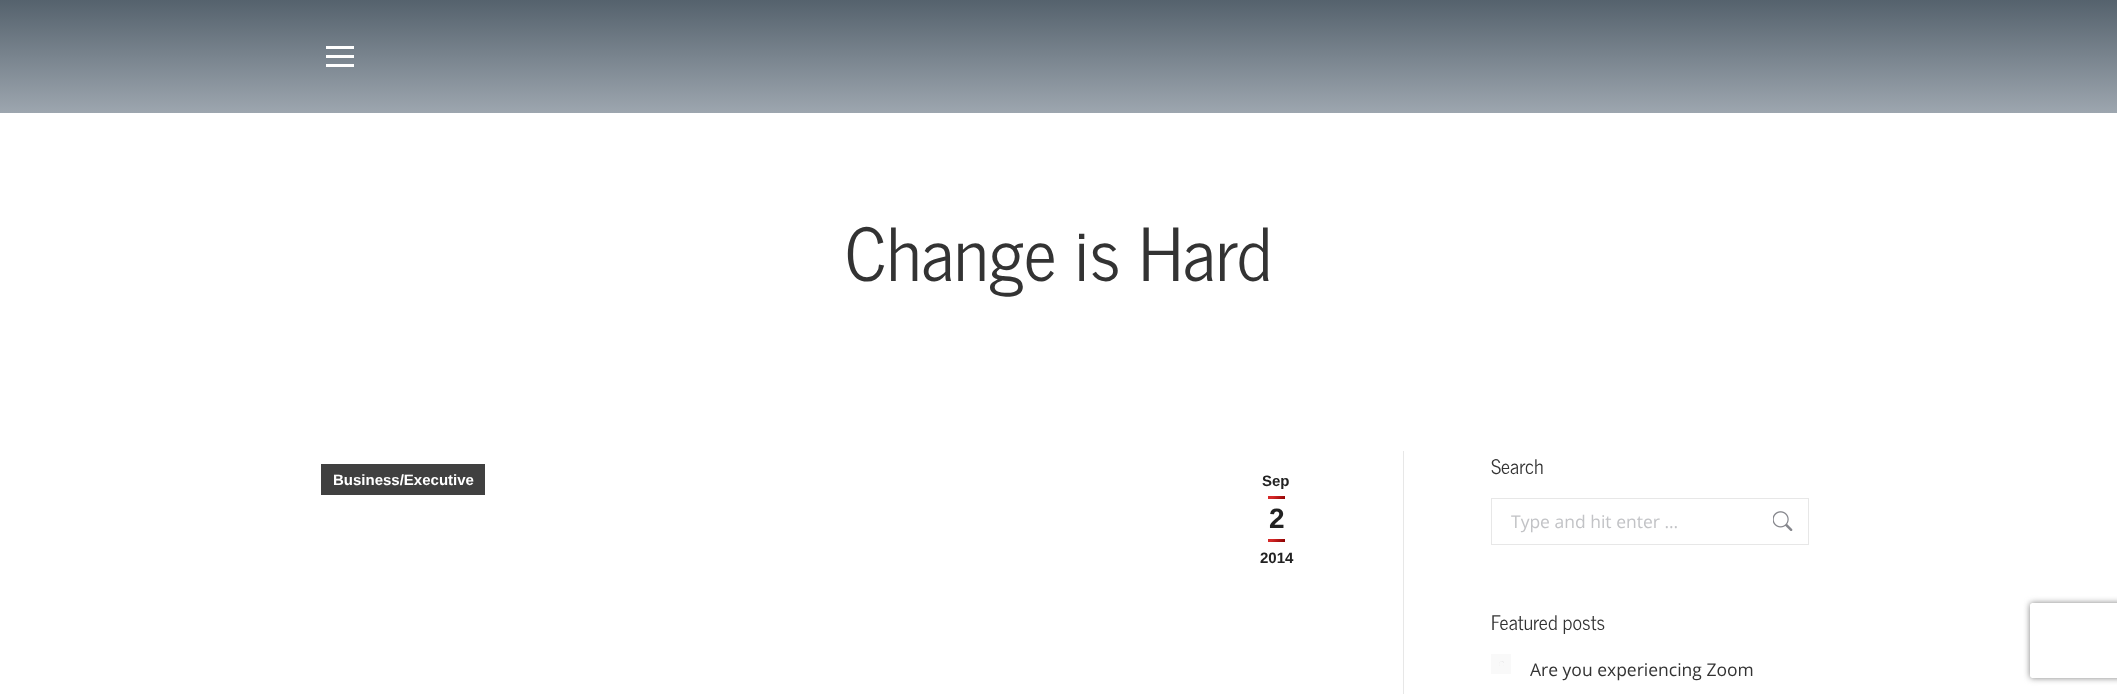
<!DOCTYPE html>
<meta charset="utf-8">
<style>body { margin: 0 } canvas { display: block }</style>
<canvas id="canvas" width="2117" height="694"></canvas>
<img id="img1" src="images/1.png" hidden>
<img id="img2" src="images/2.png" hidden>
<script>
window.onload = function () {
    const canvas = document.getElementById('canvas');
    const context = canvas.getContext('2d');
    context.miterLimit = 4;
    context.fontKerning = 'normal';
    let gradient;

    context.fillStyle = 'rgb(255, 255, 255)';
    context.fillRect(0, 0, 2117, 694);
    gradient = context.createLinearGradient(1059, 0, 1059, 113);
    gradient.addColorStop(0, 'rgb(85, 98, 109)');
    gradient.addColorStop(1, 'rgb(157, 166, 175)');
    context.fillStyle = gradient;
    context.fillRect(0, 0, 2117, 113);
    context.fillStyle = 'rgb(255, 255, 255)';
    context.fillRect(326, 46, 28, 3);
    context.fillRect(326, 55, 28, 3);
    context.fillRect(326, 64, 28, 3);
    context.fillStyle = 'rgb(64, 64, 64)';
    context.fillRect(321, 464, 164, 31);
    gradient = context.createLinearGradient(1271, 493, 1281, 503);
    gradient.addColorStop(0.3, 'rgb(213, 40, 40)');
    gradient.addColorStop(1, 'rgb(140, 1, 1)');
    context.fillStyle = gradient;
    context.fillRect(1268, 496, 17, 3);
    gradient = context.createLinearGradient(1271, 535, 1281, 545);
    gradient.addColorStop(0.3, 'rgb(213, 40, 40)');
    gradient.addColorStop(1, 'rgb(140, 1, 1)');
    context.fillStyle = gradient;
    context.fillRect(1268, 539, 17, 3);
    context.fillStyle = 'rgb(231, 231, 231)';
    context.fillRect(1403, 451, 1, 243);
    context.strokeStyle = 'rgb(231, 231, 231)';
    context.strokeRect(1491.5, 498.5, 317, 46);
    context.drawImage(document.getElementById('img1'), 1773, 511, 20, 20);
    context.fillStyle = 'rgb(249, 249, 249)';
    context.fillRect(1491, 654, 20, 20);
    context.drawImage(document.getElementById('img2'), 1499, 661, 5, 5);
    context.save();
    context.beginPath();
    context.moveTo(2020, 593);
    context.lineTo(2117, 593);
    context.lineTo(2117, 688);
    context.lineTo(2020, 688);
    context.closePath();
    context.moveTo(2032.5, 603);
    context.lineTo(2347.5, 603);
    context.bezierCurveTo(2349, 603, 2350, 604, 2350, 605.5);
    context.lineTo(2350, 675.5);
    context.bezierCurveTo(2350, 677, 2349, 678, 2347.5, 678);
    context.lineTo(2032.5, 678);
    context.bezierCurveTo(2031, 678, 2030, 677, 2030, 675.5);
    context.lineTo(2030, 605.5);
    context.bezierCurveTo(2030, 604, 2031, 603, 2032.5, 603);
    context.closePath();
    context.clip('evenodd');
    context.fillStyle = 'rgb(128, 128, 128)';
    context.filter = 'blur(3px)';
    context.beginPath();
    context.roundRect(2030, 603, 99, 75, 2.5);
    context.fill();
    context.filter = 'none';
    context.restore();
    context.font = '72.5px News Cycle';
    context.fillStyle = 'rgb(51, 51, 51)';
    context.fillText('Change is Hard', 845, 281);
    context.font = 'bold 15px Liberation Sans';
    context.fillStyle = 'rgb(255, 255, 255)';
    context.fillText('Business/Executive', 333, 485);
    context.fillStyle = 'rgb(34, 34, 34)';
    context.fillText('Sep', 1262, 486);
    context.font = 'bold 28px Liberation Sans';
    context.fillText('2', 1269, 528);
    context.font = 'bold 15px Liberation Sans';
    context.fillText('2014', 1260, 563);
    context.font = '20px News Cycle';
    context.fillStyle = 'rgb(51, 51, 51)';
    context.fillText('Search', 1491, 474);
    context.font = '17.5px Open Sans';
    context.fillStyle = 'rgb(194, 195, 198)';
    context.fillText('Type and hit enter …', 1511, 528);
    context.font = '20px News Cycle';
    context.fillStyle = 'rgb(51, 51, 51)';
    context.fillText('Featured posts', 1491, 630);
    context.font = '17.5px Open Sans';
    context.fillText('Are you experiencing Zoom', 1530, 676);
};
</script>
